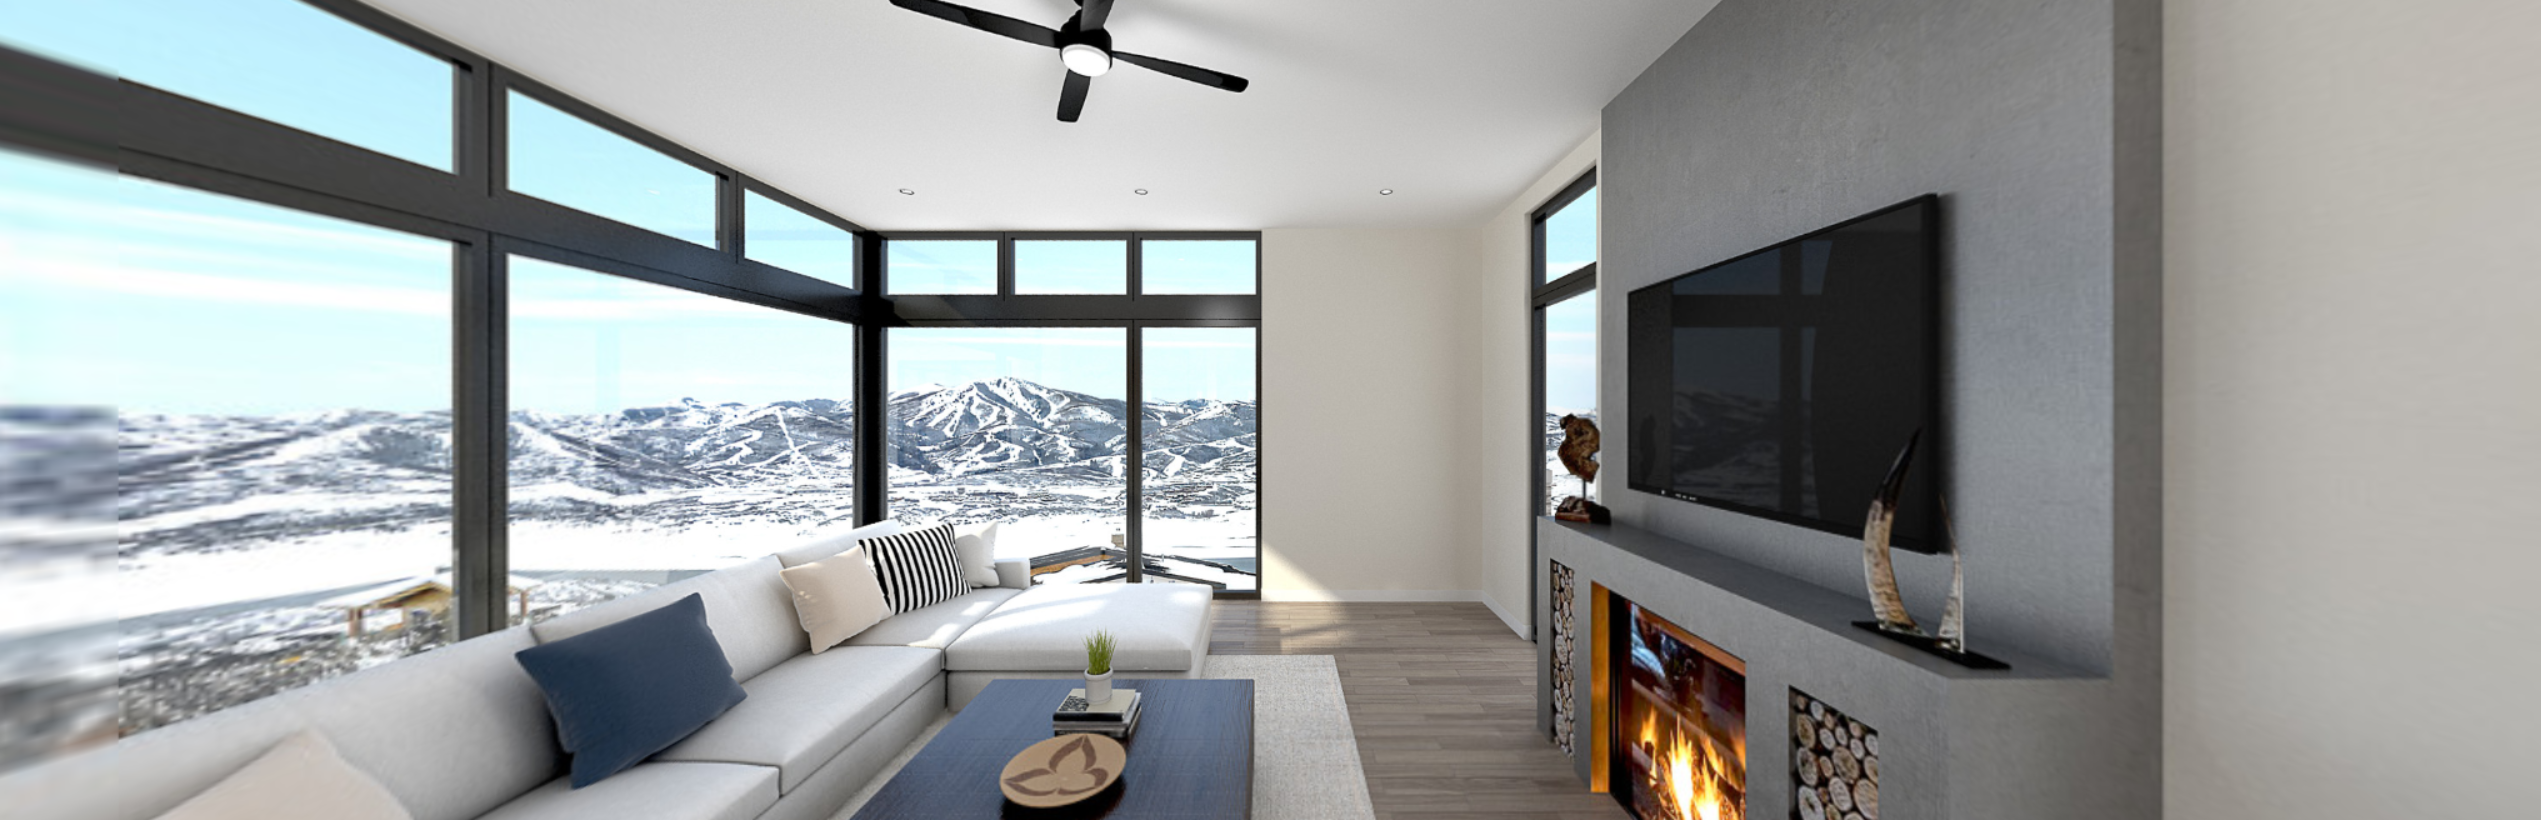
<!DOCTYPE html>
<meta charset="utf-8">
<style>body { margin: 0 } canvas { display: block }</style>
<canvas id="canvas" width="2541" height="820"></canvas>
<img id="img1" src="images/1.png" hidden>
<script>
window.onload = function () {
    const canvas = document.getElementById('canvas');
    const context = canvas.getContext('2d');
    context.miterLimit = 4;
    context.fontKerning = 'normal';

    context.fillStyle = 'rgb(255, 255, 255)';
    context.fillRect(0, 0, 2541, 820);
    context.drawImage(document.getElementById('img1'), 0, 0, 2541, 820);
};
</script>
